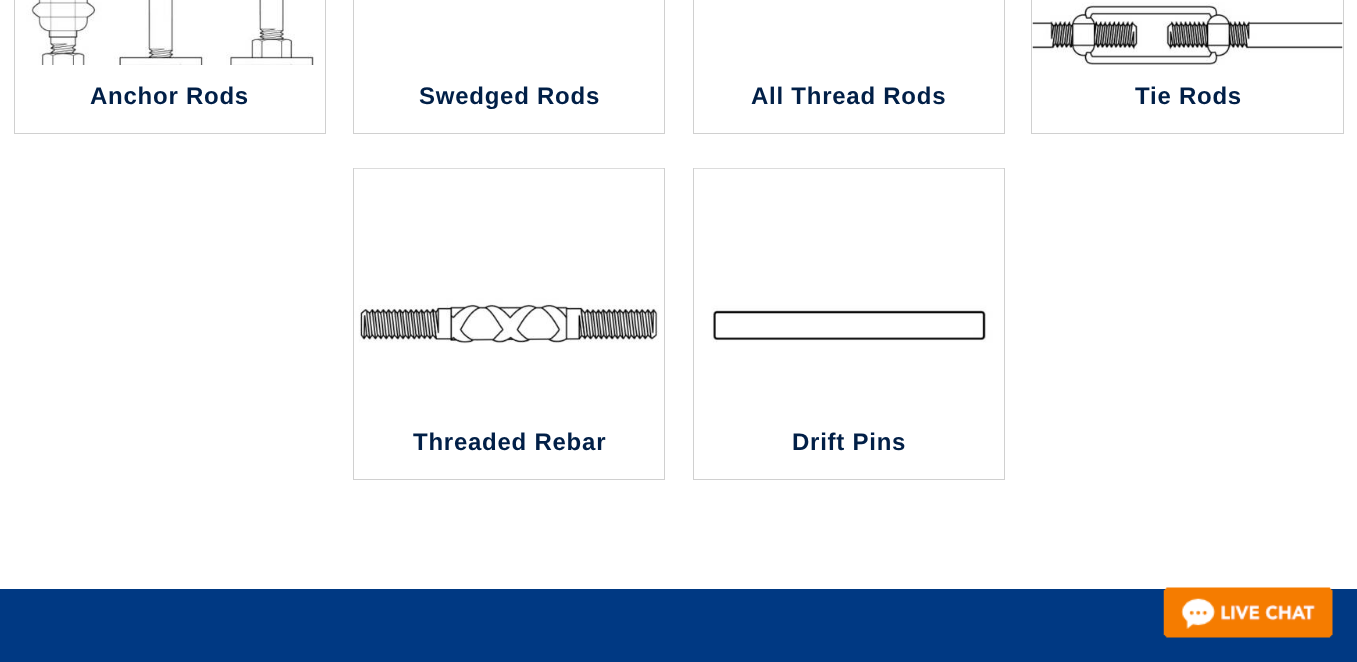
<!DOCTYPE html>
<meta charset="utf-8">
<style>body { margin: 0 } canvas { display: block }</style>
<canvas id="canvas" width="1357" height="662"></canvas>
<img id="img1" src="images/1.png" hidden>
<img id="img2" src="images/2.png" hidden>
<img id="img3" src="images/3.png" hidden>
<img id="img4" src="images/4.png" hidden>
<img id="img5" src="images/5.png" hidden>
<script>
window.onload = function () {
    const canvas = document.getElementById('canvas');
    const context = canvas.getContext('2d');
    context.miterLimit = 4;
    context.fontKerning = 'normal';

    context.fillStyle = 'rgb(255, 255, 255)';
    context.fillRect(0, 0, 1357, 662);
    context.strokeStyle = 'rgb(208, 208, 208)';
    context.strokeRect(14.5, -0.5, 311, 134);
    context.drawImage(document.getElementById('img1'), 26, 0, 288, 65);
    context.strokeRect(353.5, -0.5, 311, 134);
    context.strokeRect(693.5, -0.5, 311, 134);
    context.strokeRect(1031.5, -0.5, 312, 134);
    context.drawImage(document.getElementById('img2'), 1032, 2, 311, 63);
    context.strokeRect(353.5, 168.5, 311, 311);
    context.drawImage(document.getElementById('img3'), 354, 168, 310, 176);
    context.strokeRect(693.5, 168.5, 311, 311);
    context.drawImage(document.getElementById('img4'), 694, 168, 310, 175);
    context.fillStyle = 'rgb(0, 57, 131)';
    context.fillRect(0, 589, 1357, 73);
    context.drawImage(document.getElementById('img5'), 1163, 587, 170, 51);
    context.letterSpacing = '0.75px';
    context.font = 'bold 24px Liberation Sans';
    context.fillStyle = 'rgb(1, 31, 71)';
    context.fillText('Anchor Rods', 90, 104);
    context.fillText('Swedged Rods', 419, 104);
    context.fillText('All Thread Rods', 751, 104);
    context.fillText('Tie Rods', 1135, 104);
    context.fillText('Threaded Rebar', 413, 450);
    context.fillText('Drift Pins', 792, 450);
};
</script>
